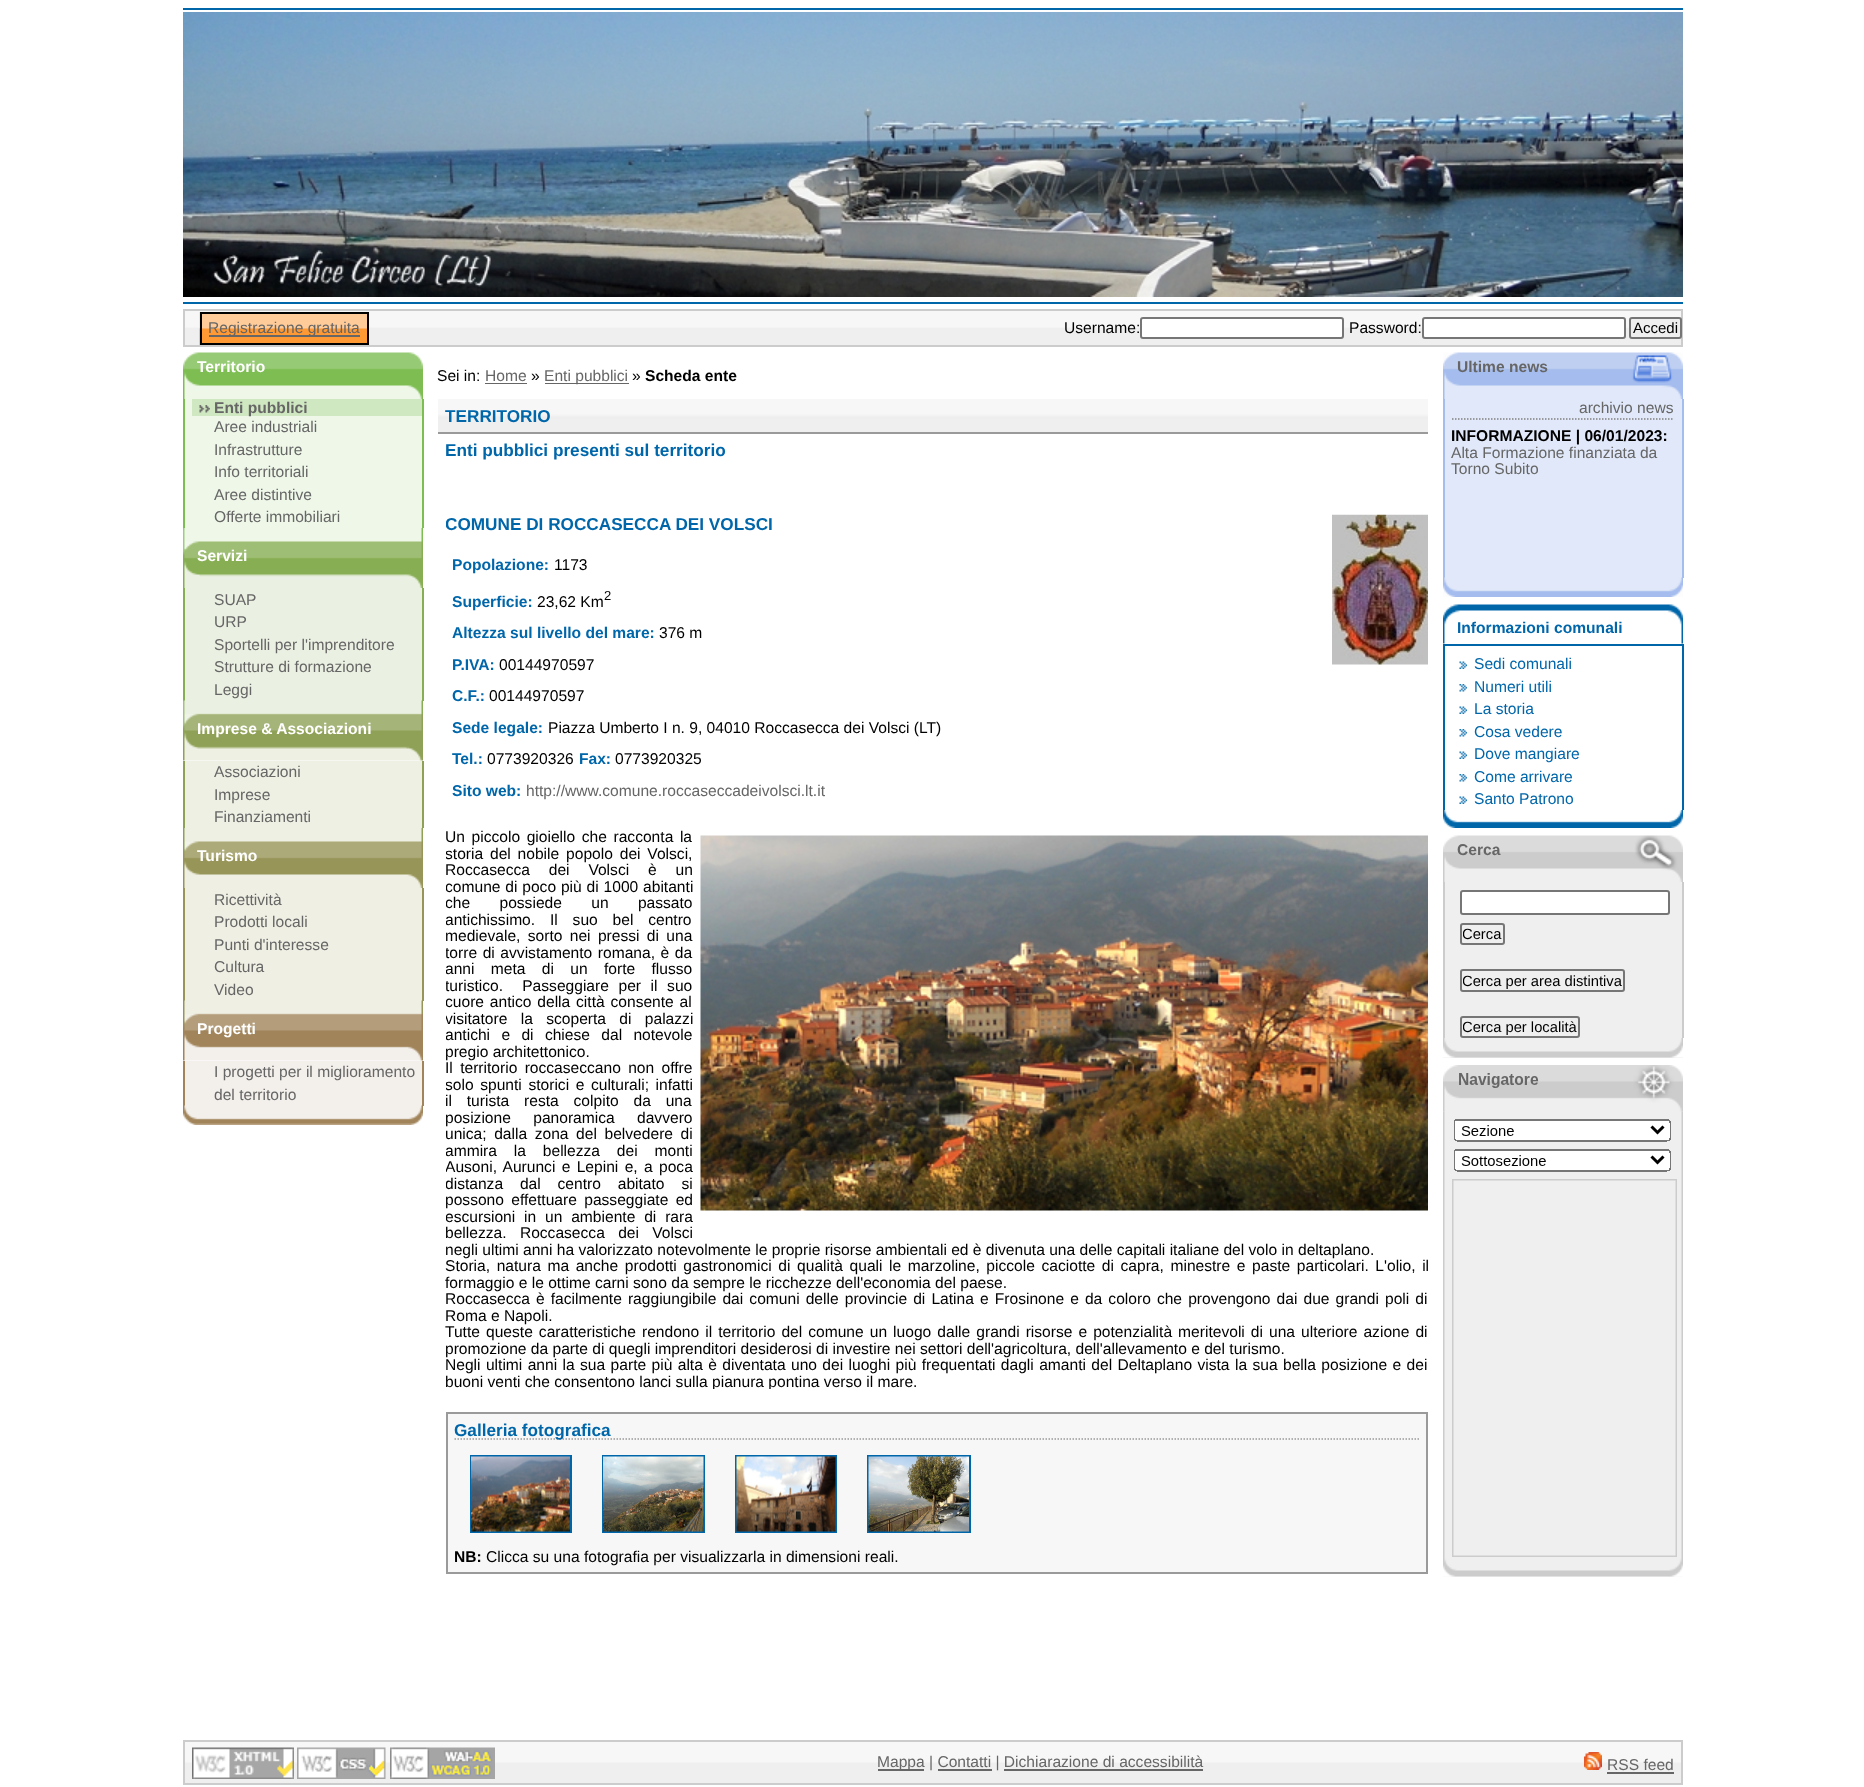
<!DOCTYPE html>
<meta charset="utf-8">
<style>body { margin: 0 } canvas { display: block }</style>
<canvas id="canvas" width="1864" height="1787"></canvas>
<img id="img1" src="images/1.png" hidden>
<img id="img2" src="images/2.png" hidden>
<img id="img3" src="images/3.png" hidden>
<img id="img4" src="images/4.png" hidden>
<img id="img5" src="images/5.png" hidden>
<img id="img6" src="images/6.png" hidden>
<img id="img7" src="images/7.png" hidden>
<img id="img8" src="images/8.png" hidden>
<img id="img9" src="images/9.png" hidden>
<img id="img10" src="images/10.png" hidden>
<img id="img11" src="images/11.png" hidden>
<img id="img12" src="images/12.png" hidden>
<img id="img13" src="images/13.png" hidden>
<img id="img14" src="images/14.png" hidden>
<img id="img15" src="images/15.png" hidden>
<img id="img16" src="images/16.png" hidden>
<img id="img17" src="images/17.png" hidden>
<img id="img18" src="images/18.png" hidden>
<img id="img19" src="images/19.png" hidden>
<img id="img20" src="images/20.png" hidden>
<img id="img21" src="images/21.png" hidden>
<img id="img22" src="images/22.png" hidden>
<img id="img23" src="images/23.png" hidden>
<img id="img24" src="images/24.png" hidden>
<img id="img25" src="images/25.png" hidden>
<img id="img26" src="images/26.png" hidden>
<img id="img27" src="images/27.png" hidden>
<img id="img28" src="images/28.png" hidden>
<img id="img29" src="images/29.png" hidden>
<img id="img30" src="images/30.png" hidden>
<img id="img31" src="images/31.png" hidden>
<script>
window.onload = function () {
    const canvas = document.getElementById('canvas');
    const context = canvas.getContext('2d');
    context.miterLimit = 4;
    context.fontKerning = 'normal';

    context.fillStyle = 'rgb(255, 255, 255)';
    context.fillRect(0, 0, 1864, 1787);
    context.fillStyle = 'rgb(0, 102, 170)';
    context.fillRect(183, 8, 1500, 2);
    context.fillRect(183, 302, 1500, 2);
    context.drawImage(document.getElementById('img1'), 183, 12, 1500, 285);
    context.drawImage(document.getElementById('img2'), 185, 311, 1496, 34);
    context.strokeStyle = 'rgb(204, 204, 204)';
    context.lineWidth = 2;
    context.strokeRect(184, 310, 1498, 36);
    context.drawImage(document.getElementById('img3'), 199, 312, 168, 33);
    context.strokeStyle = 'rgb(0, 0, 0)';
    context.strokeRect(201, 313, 167, 31);
    context.fillStyle = 'rgb(102, 102, 102)';
    context.fillRect(209, 335, 151, 2);
    context.fillStyle = 'rgb(255, 255, 255)';
    context.beginPath();
    context.roundRect(1141, 318, 202, 20, 2);
    context.fill();
    context.strokeStyle = 'rgb(118, 118, 118)';
    context.stroke();
    context.beginPath();
    context.roundRect(1423, 318, 202, 20, 2);
    context.fill();
    context.stroke();
    context.fillStyle = 'rgb(239, 239, 239)';
    context.beginPath();
    context.roundRect(1630, 318, 51, 20, 2);
    context.fill();
    context.stroke();
    context.drawImage(document.getElementById('img4'), 183, 352, 240, 47);
    context.fillStyle = 'rgb(238, 247, 232)';
    context.fillRect(185, 399, 7, 17);
    context.fillStyle = 'rgb(125, 189, 81)';
    context.fillRect(422, 399, 2, 129);
    context.fillRect(183, 399, 2, 129);
    context.fillStyle = 'rgb(208, 232, 193)';
    context.fillRect(192, 399, 230, 17);
    context.drawImage(document.getElementById('img5'), 199, 405, 11, 8);
    context.fillStyle = 'rgb(238, 247, 232)';
    context.fillRect(185, 416, 237, 112);
    context.drawImage(document.getElementById('img6'), 183, 528, 240, 60);
    context.fillStyle = 'rgb(235, 241, 226)';
    context.fillRect(185, 588, 237, 113);
    context.fillStyle = 'rgb(135, 174, 83)';
    context.fillRect(422, 588, 2, 113);
    context.fillRect(183, 588, 2, 113);
    context.drawImage(document.getElementById('img7'), 183, 700, 240, 61);
    context.fillStyle = 'rgb(237, 240, 227)';
    context.fillRect(185, 761, 237, 67);
    context.fillStyle = 'rgb(143, 161, 86)';
    context.fillRect(422, 761, 2, 67);
    context.fillRect(183, 761, 2, 67);
    context.drawImage(document.getElementById('img8'), 183, 828, 240, 60);
    context.fillStyle = 'rgb(239, 239, 228)';
    context.fillRect(185, 888, 237, 113);
    context.fillStyle = 'rgb(152, 149, 88)';
    context.fillRect(422, 888, 2, 113);
    context.fillRect(183, 888, 2, 113);
    context.drawImage(document.getElementById('img9'), 183, 1000, 240, 61);
    context.fillStyle = 'rgb(243, 239, 235)';
    context.fillRect(185, 1061, 237, 45);
    context.fillStyle = 'rgb(161, 132, 90)';
    context.fillRect(422, 1061, 2, 45);
    context.fillRect(183, 1061, 2, 45);
    context.drawImage(document.getElementById('img10'), 183, 1105, 240, 20);
    context.fillStyle = 'rgb(102, 102, 102)';
    context.fillRect(485, 383, 42, 1);
    context.fillRect(545, 383, 84, 1);
    context.drawImage(document.getElementById('img11'), 438, 399, 990, 33);
    context.fillStyle = 'rgb(154, 154, 154)';
    context.fillRect(438, 432, 990, 2);
    context.drawImage(document.getElementById('img12'), 1332, 514, 96, 151);
    context.drawImage(document.getElementById('img13'), 700, 835, 728, 376);
    context.fillStyle = 'rgb(247, 247, 247)';
    context.beginPath();
    context.rect(447, 1413, 980, 160);
    context.fill();
    context.strokeStyle = 'rgb(154, 154, 154)';
    context.stroke();
    context.beginPath();
    context.moveTo(454.5, 1439);
    context.lineTo(1419, 1439);
    context.lineWidth = 1.5;
    context.setLineDash([1.5, 1.5]);
    context.stroke();
    context.strokeStyle = 'rgb(0, 102, 170)';
    context.lineWidth = 2;
    context.setLineDash([]);
    context.strokeRect(471, 1456, 100, 76);
    context.drawImage(document.getElementById('img14'), 471, 1456, 99, 76);
    context.strokeRect(603, 1456, 101, 76);
    context.drawImage(document.getElementById('img15'), 603, 1456, 101, 76);
    context.strokeRect(736, 1456, 100, 76);
    context.drawImage(document.getElementById('img16'), 736, 1456, 100, 76);
    context.strokeRect(868, 1456, 102, 76);
    context.drawImage(document.getElementById('img17'), 868, 1456, 101, 76);
    context.fillStyle = 'rgb(224, 232, 249)';
    context.fillRect(1445, 399, 237, 179);
    context.drawImage(document.getElementById('img18'), 1443, 352, 240, 47);
    context.fillStyle = 'rgb(165, 188, 238)';
    context.fillRect(1682, 399, 2, 179);
    context.fillRect(1443, 399, 2, 179);
    context.beginPath();
    context.moveTo(1452, 419);
    context.lineTo(1674, 419);
    context.strokeStyle = 'rgb(128, 128, 128)';
    context.lineWidth = 1.5;
    context.setLineDash([1.5, 1.5]);
    context.stroke();
    context.drawImage(document.getElementById('img19'), 1443, 577, 240, 20);
    context.drawImage(document.getElementById('img20'), 1443, 604, 240, 40);
    context.fillStyle = 'rgb(0, 102, 170)';
    context.fillRect(1443, 644, 240, 2);
    context.fillRect(1682, 644, 2, 166);
    context.fillRect(1443, 644, 2, 166);
    context.drawImage(document.getElementById('img21'), 1459, 661, 8, 8);
    context.drawImage(document.getElementById('img22'), 1459, 684, 8, 8);
    context.drawImage(document.getElementById('img21'), 1459, 706, 8, 8);
    context.drawImage(document.getElementById('img22'), 1459, 729, 8, 8);
    context.drawImage(document.getElementById('img21'), 1459, 751, 8, 8);
    context.drawImage(document.getElementById('img22'), 1459, 774, 8, 8);
    context.drawImage(document.getElementById('img21'), 1459, 796, 8, 8);
    context.drawImage(document.getElementById('img23'), 1443, 810, 240, 18);
    context.fillStyle = 'rgb(239, 239, 239)';
    context.fillRect(1443, 882, 240, 176);
    context.drawImage(document.getElementById('img24'), 1443, 835, 240, 47);
    context.fillStyle = 'rgb(204, 204, 204)';
    context.fillRect(1682, 882, 2, 156);
    context.fillRect(1443, 882, 2, 156);
    context.fillStyle = 'rgb(255, 255, 255)';
    context.beginPath();
    context.roundRect(1461, 891, 208, 23, 2);
    context.fill();
    context.strokeStyle = 'rgb(118, 118, 118)';
    context.lineWidth = 2;
    context.setLineDash([]);
    context.stroke();
    context.beginPath();
    context.roundRect(1461, 924, 43, 20, 2);
    context.stroke();
    context.beginPath();
    context.roundRect(1461, 970, 163, 21, 2);
    context.stroke();
    context.beginPath();
    context.roundRect(1461, 1017, 118, 20, 2);
    context.stroke();
    context.drawImage(document.getElementById('img25'), 1443, 1038, 240, 20);
    context.drawImage(document.getElementById('img26'), 1443, 1065, 240, 512);
    context.drawImage(document.getElementById('img27'), 185, 1742, 1496, 41);
    context.strokeStyle = 'rgb(204, 204, 204)';
    context.strokeRect(184, 1741, 1498, 43);
    context.drawImage(document.getElementById('img28'), 192, 1747, 102, 32);
    context.drawImage(document.getElementById('img29'), 297, 1747, 89, 32);
    context.drawImage(document.getElementById('img30'), 390, 1747, 105, 32);
    context.fillStyle = 'rgb(102, 102, 102)';
    context.fillRect(878, 1769, 46, 2);
    context.fillRect(938, 1769, 54, 2);
    context.fillRect(1004, 1769, 199, 2);
    context.drawImage(document.getElementById('img31'), 1584, 1752, 18, 18);
    context.fillRect(1607, 1772, 67, 2);
    context.font = '15.6px Liberation Sans';
    context.fillText('Registrazione gratuita', 208, 333);
    context.fillStyle = 'rgb(0, 0, 0)';
    context.fillText('Username:', 1064, 333);
    context.fillText('Password:', 1349, 333);
    context.font = '15px Liberation Sans';
    context.fillText('Accedi', 1633, 333);
    context.font = 'bold 15.6px Liberation Sans';
    context.fillStyle = 'rgb(255, 255, 255)';
    context.fillText('Territorio', 197, 372);
    context.fillStyle = 'rgb(102, 102, 102)';
    context.fillText('Enti pubblici', 214, 413);
    context.font = '15.6px Liberation Sans';
    context.fillText('Aree industriali', 214, 432);
    context.fillText('Infrastrutture', 214, 455);
    context.fillText('Info territoriali', 214, 477);
    context.fillText('Aree distintive', 214, 500);
    context.fillText('Offerte immobiliari', 214, 522);
    context.font = 'bold 15.6px Liberation Sans';
    context.fillStyle = 'rgb(255, 255, 255)';
    context.fillText('Servizi', 197, 561);
    context.font = '15.6px Liberation Sans';
    context.fillStyle = 'rgb(102, 102, 102)';
    context.fillText('SUAP', 214, 605);
    context.fillText('URP', 214, 627);
    context.fillText('Sportelli per l\'imprenditore', 214, 650);
    context.fillText('Strutture di formazione', 214, 672);
    context.fillText('Leggi', 214, 695);
    context.font = 'bold 15.6px Liberation Sans';
    context.fillStyle = 'rgb(255, 255, 255)';
    context.fillText('Imprese & Associazioni', 197, 734);
    context.font = '15.6px Liberation Sans';
    context.fillStyle = 'rgb(102, 102, 102)';
    context.fillText('Associazioni', 214, 777);
    context.fillText('Imprese', 214, 800);
    context.fillText('Finanziamenti', 214, 822);
    context.font = 'bold 15.6px Liberation Sans';
    context.fillStyle = 'rgb(255, 255, 255)';
    context.fillText('Turismo', 197, 861);
    context.font = '15.6px Liberation Sans';
    context.fillStyle = 'rgb(102, 102, 102)';
    context.fillText('Ricettività', 214, 905);
    context.fillText('Prodotti locali', 214, 927);
    context.fillText('Punti d\'interesse', 214, 950);
    context.fillText('Cultura', 214, 972);
    context.fillText('Video', 214, 995);
    context.font = 'bold 15.6px Liberation Sans';
    context.fillStyle = 'rgb(255, 255, 255)';
    context.fillText('Progetti', 197, 1034);
    context.font = '15.6px Liberation Sans';
    context.fillStyle = 'rgb(102, 102, 102)';
    context.fillText('I progetti per il miglioramento', 214, 1077);
    context.fillText('del territorio', 214, 1100);
    context.fillStyle = 'rgb(0, 0, 0)';
    context.fillText('Sei in:', 437, 381);
    context.fillStyle = 'rgb(102, 102, 102)';
    context.fillText('Home', 485, 381);
    context.fillStyle = 'rgb(0, 0, 0)';
    context.fillText('»', 531, 381);
    context.fillStyle = 'rgb(102, 102, 102)';
    context.fillText('Enti pubblici', 544, 381);
    context.fillStyle = 'rgb(0, 0, 0)';
    context.fillText('»', 632, 381);
    context.font = 'bold 15.6px Liberation Sans';
    context.fillText('Scheda ente', 645, 381);
    context.font = 'bold 17.2px Liberation Sans';
    context.fillStyle = 'rgb(0, 102, 170)';
    context.fillText('TERRITORIO', 445, 422);
    context.fillText('Enti pubblici presenti sul territorio', 445, 456);
    context.save();
    context.beginPath();
    context.rect(446, 515, 982, 291);
    context.clip();
    context.fillText('COMUNE DI ROCCASECCA DEI VOLSCI', 445, 530);
    context.restore();
    context.font = 'bold 15.6px Liberation Sans';
    context.fillText('Popolazione:', 452, 570);
    context.font = '15.6px Liberation Sans';
    context.fillStyle = 'rgb(0, 0, 0)';
    context.fillText('1173', 554, 570);
    context.font = 'bold 15.6px Liberation Sans';
    context.fillStyle = 'rgb(0, 102, 170)';
    context.fillText('Superficie:', 452, 607);
    context.font = '15.6px Liberation Sans';
    context.fillStyle = 'rgb(0, 0, 0)';
    context.fillText('23,62 Km', 537, 607);
    context.font = '13px Liberation Sans';
    context.fillText('2', 604, 600);
    context.font = 'bold 15.6px Liberation Sans';
    context.fillStyle = 'rgb(0, 102, 170)';
    context.fillText('Altezza sul livello del mare:', 452, 638);
    context.font = '15.6px Liberation Sans';
    context.fillStyle = 'rgb(0, 0, 0)';
    context.fillText('376 m', 659, 638);
    context.font = 'bold 15.6px Liberation Sans';
    context.fillStyle = 'rgb(0, 102, 170)';
    context.fillText('P.IVA:', 452, 670);
    context.font = '15.6px Liberation Sans';
    context.fillStyle = 'rgb(0, 0, 0)';
    context.fillText('00144970597', 499, 670);
    context.font = 'bold 15.6px Liberation Sans';
    context.fillStyle = 'rgb(0, 102, 170)';
    context.fillText('C.F.:', 452, 701);
    context.font = '15.6px Liberation Sans';
    context.fillStyle = 'rgb(0, 0, 0)';
    context.fillText('00144970597', 489, 701);
    context.font = 'bold 15.6px Liberation Sans';
    context.fillStyle = 'rgb(0, 102, 170)';
    context.fillText('Sede legale:', 452, 733);
    context.font = '15.6px Liberation Sans';
    context.fillStyle = 'rgb(0, 0, 0)';
    context.fillText('Piazza Umberto I n. 9, 04010 Roccasecca dei Volsci (LT)', 548, 733);
    context.font = 'bold 15.6px Liberation Sans';
    context.fillStyle = 'rgb(0, 102, 170)';
    context.fillText('Tel.:', 452, 764);
    context.font = '15.6px Liberation Sans';
    context.fillStyle = 'rgb(0, 0, 0)';
    context.fillText('0773920326', 487, 764);
    context.font = 'bold 15.6px Liberation Sans';
    context.fillStyle = 'rgb(0, 102, 170)';
    context.fillText('Fax:', 579, 764);
    context.font = '15.6px Liberation Sans';
    context.fillStyle = 'rgb(0, 0, 0)';
    context.fillText('0773920325', 615, 764);
    context.font = 'bold 15.6px Liberation Sans';
    context.fillStyle = 'rgb(0, 102, 170)';
    context.fillText('Sito web:', 452, 796);
    context.font = '15.6px Liberation Sans';
    context.fillStyle = 'rgb(102, 102, 102)';
    context.fillText('http://www.comune.roccaseccadeivolsci.lt.it', 526, 796);
    context.wordSpacing = '2.25px';
    context.fillStyle = 'rgb(0, 0, 0)';
    context.fillText('Un piccolo gioiello che racconta la', 445, 842);
    context.save();
    context.beginPath();
    context.rect(446, 828, 982, 561);
    context.clip();
    context.wordSpacing = '2.5px';
    context.fillText('storia del nobile popolo dei Volsci,', 445, 859);
    context.restore();
    context.wordSpacing = '14.5px';
    context.fillText('Roccasecca dei Volsci è un', 445, 875);
    context.save();
    context.beginPath();
    context.rect(446, 828, 982, 561);
    context.clip();
    context.wordSpacing = '0.5px';
    context.fillText('comune di poco più di 1000 abitanti', 445, 892);
    context.wordSpacing = '25px';
    context.fillText('che possiede un passato', 445, 908);
    context.wordSpacing = '10.5px';
    context.fillText('antichissimo. Il suo bel centro', 445, 925);
    context.wordSpacing = '3px';
    context.fillText('medievale, sorto nei pressi di una', 445, 941);
    context.wordSpacing = '1.25px';
    context.fillText('torre di avvistamento romana, è da', 445, 958);
    context.wordSpacing = '12px';
    context.fillText('anni meta di un forte flusso', 445, 974);
    context.wordSpacing = '5.25px';
    context.fillText('turistico.  Passeggiare per il suo', 445, 991);
    context.wordSpacing = '1.5px';
    context.fillText('cuore antico della città consente al', 445, 1007);
    context.wordSpacing = '9px';
    context.fillText('visitatore la scoperta di palazzi', 445, 1024);
    context.wordSpacing = '7px';
    context.fillText('antichi e di chiese dal notevole', 445, 1040);
    context.wordSpacing = '0px';
    context.fillText('pregio architettonico.', 445, 1057);
    context.restore();
    context.wordSpacing = '3px';
    context.fillText('Il territorio roccaseccano non offre', 445, 1073);
    context.save();
    context.beginPath();
    context.rect(446, 828, 982, 561);
    context.clip();
    context.wordSpacing = '2.25px';
    context.fillText('solo spunti storici e culturali; infatti', 445, 1090);
    context.wordSpacing = '10.5px';
    context.fillText('il turista resta colpito da una', 445, 1106);
    context.wordSpacing = '18px';
    context.fillText('posizione panoramica davvero', 445, 1123);
    context.wordSpacing = '3.25px';
    context.fillText('unica; dalla zona del belvedere di', 445, 1139);
    context.wordSpacing = '12.5px';
    context.fillText('ammira la bellezza dei monti', 445, 1156);
    context.wordSpacing = '2px';
    context.fillText('Ausoni, Aurunci e Lepini e, a poca', 445, 1172);
    context.wordSpacing = '12.5px';
    context.fillText('distanza dal centro abitato si', 445, 1189);
    context.wordSpacing = '3px';
    context.fillText('possono effettuare passeggiate ed', 445, 1205);
    context.wordSpacing = '4.5px';
    context.fillText('escursioni in un ambiente di rara', 445, 1222);
    context.wordSpacing = '9px';
    context.fillText('bellezza. Roccasecca dei Volsci', 445, 1238);
    context.wordSpacing = '0px';
    context.fillText('negli ultimi anni ha valorizzato notevolmente le proprie risorse ambientali ed è divenuta una delle capitali italiane del volo in deltaplano.', 445, 1255);
    context.restore();
    context.wordSpacing = '2.25px';
    context.fillText('Storia, natura ma anche prodotti gastronomici di qualità quali le marzoline, piccole caciotte di capra, minestre e paste particolari. L\'olio, il', 445, 1271);
    context.wordSpacing = '0px';
    context.fillText('formaggio e le ottime carni sono da sempre le ricchezze dell\'economia del paese.', 445, 1288);
    context.wordSpacing = '1.75px';
    context.fillText('Roccasecca è facilmente raggiungibile dai comuni delle provincie di Latina e Frosinone e da coloro che provengono dai due grandi poli di', 445, 1304);
    context.wordSpacing = '0px';
    context.fillText('Roma e Napoli.', 445, 1321);
    context.wordSpacing = '1.7px';
    context.fillText('Tutte queste caratteristiche rendono il territorio del comune un luogo dalle grandi risorse e potenzialità meritevoli di una ulteriore azione di', 445, 1337);
    context.save();
    context.beginPath();
    context.rect(446, 828, 982, 561);
    context.clip();
    context.wordSpacing = '0px';
    context.fillText('promozione da parte di quegli imprenditori desiderosi di investire nei settori dell\'agricoltura, dell\'allevamento e del turismo.', 445, 1354);
    context.restore();
    context.wordSpacing = '1.05px';
    context.fillText('Negli ultimi anni la sua parte più alta è diventata uno dei luoghi più frequentati dagli amanti del Deltaplano vista la sua bella posizione e dei', 445, 1370);
    context.save();
    context.beginPath();
    context.rect(446, 828, 982, 561);
    context.clip();
    context.wordSpacing = '0px';
    context.fillText('buoni venti che consentono lanci sulla pianura pontina verso il mare.', 445, 1387);
    context.restore();
    context.wordSpacing = '0px';
    context.font = 'bold 17.2px Liberation Sans';
    context.fillStyle = 'rgb(0, 102, 170)';
    context.fillText('Galleria fotografica', 454, 1436);
    context.font = 'bold 15.6px Liberation Sans';
    context.fillStyle = 'rgb(0, 0, 0)';
    context.fillText('NB:', 454, 1562);
    context.font = '15.6px Liberation Sans';
    context.fillText('Clicca su una fotografia per visualizzarla in dimensioni reali.', 486, 1562);
    context.font = 'bold 15.6px Liberation Sans';
    context.fillStyle = 'rgb(102, 102, 102)';
    context.fillText('Ultime news', 1457, 372);
    context.font = '15.6px Liberation Sans';
    context.fillText('archivio news', 1579, 413);
    context.font = 'bold 15.6px Liberation Sans';
    context.fillStyle = 'rgb(0, 0, 0)';
    context.fillText('INFORMAZIONE | 06/01/2023:', 1451, 441);
    context.font = '15.6px Liberation Sans';
    context.fillStyle = 'rgb(102, 102, 102)';
    context.fillText('Alta Formazione finanziata da', 1451, 458);
    context.fillText('Torno Subito', 1451, 474);
    context.font = 'bold 15.6px Liberation Sans';
    context.fillStyle = 'rgb(0, 102, 170)';
    context.fillText('Informazioni comunali', 1457, 633);
    context.font = '15.6px Liberation Sans';
    context.fillText('Sedi comunali', 1474, 669);
    context.fillText('Numeri utili', 1474, 692);
    context.fillText('La storia', 1474, 714);
    context.fillText('Cosa vedere', 1474, 737);
    context.fillText('Dove mangiare', 1474, 759);
    context.fillText('Come arrivare', 1474, 782);
    context.fillText('Santo Patrono', 1474, 804);
    context.font = 'bold 15.6px Liberation Sans';
    context.fillStyle = 'rgb(102, 102, 102)';
    context.fillText('Cerca', 1457, 855);
    context.save();
    context.beginPath();
    context.rect(1463, 926, 39, 16);
    context.clip();
    context.font = '14.75px Liberation Sans';
    context.fillStyle = 'rgb(0, 0, 0)';
    context.fillText('Cerca', 1462, 939);
    context.restore();
    context.save();
    context.beginPath();
    context.rect(1463, 972, 159, 17);
    context.clip();
    context.font = '14.75px Liberation Sans';
    context.fillStyle = 'rgb(0, 0, 0)';
    context.fillText('Cerca per area distintiva', 1462, 986);
    context.restore();
    context.save();
    context.beginPath();
    context.rect(1463, 1019, 114, 16);
    context.clip();
    context.font = '14.75px Liberation Sans';
    context.fillStyle = 'rgb(0, 0, 0)';
    context.fillText('Cerca per località', 1462, 1032);
    context.restore();
    context.font = '15.6px Liberation Sans';
    context.fillText('Mappa | Contatti | Dichiarazione di accessibilità', 877, 1767);
    context.fillText('RSS feed', 1607, 1770);
};
</script>
